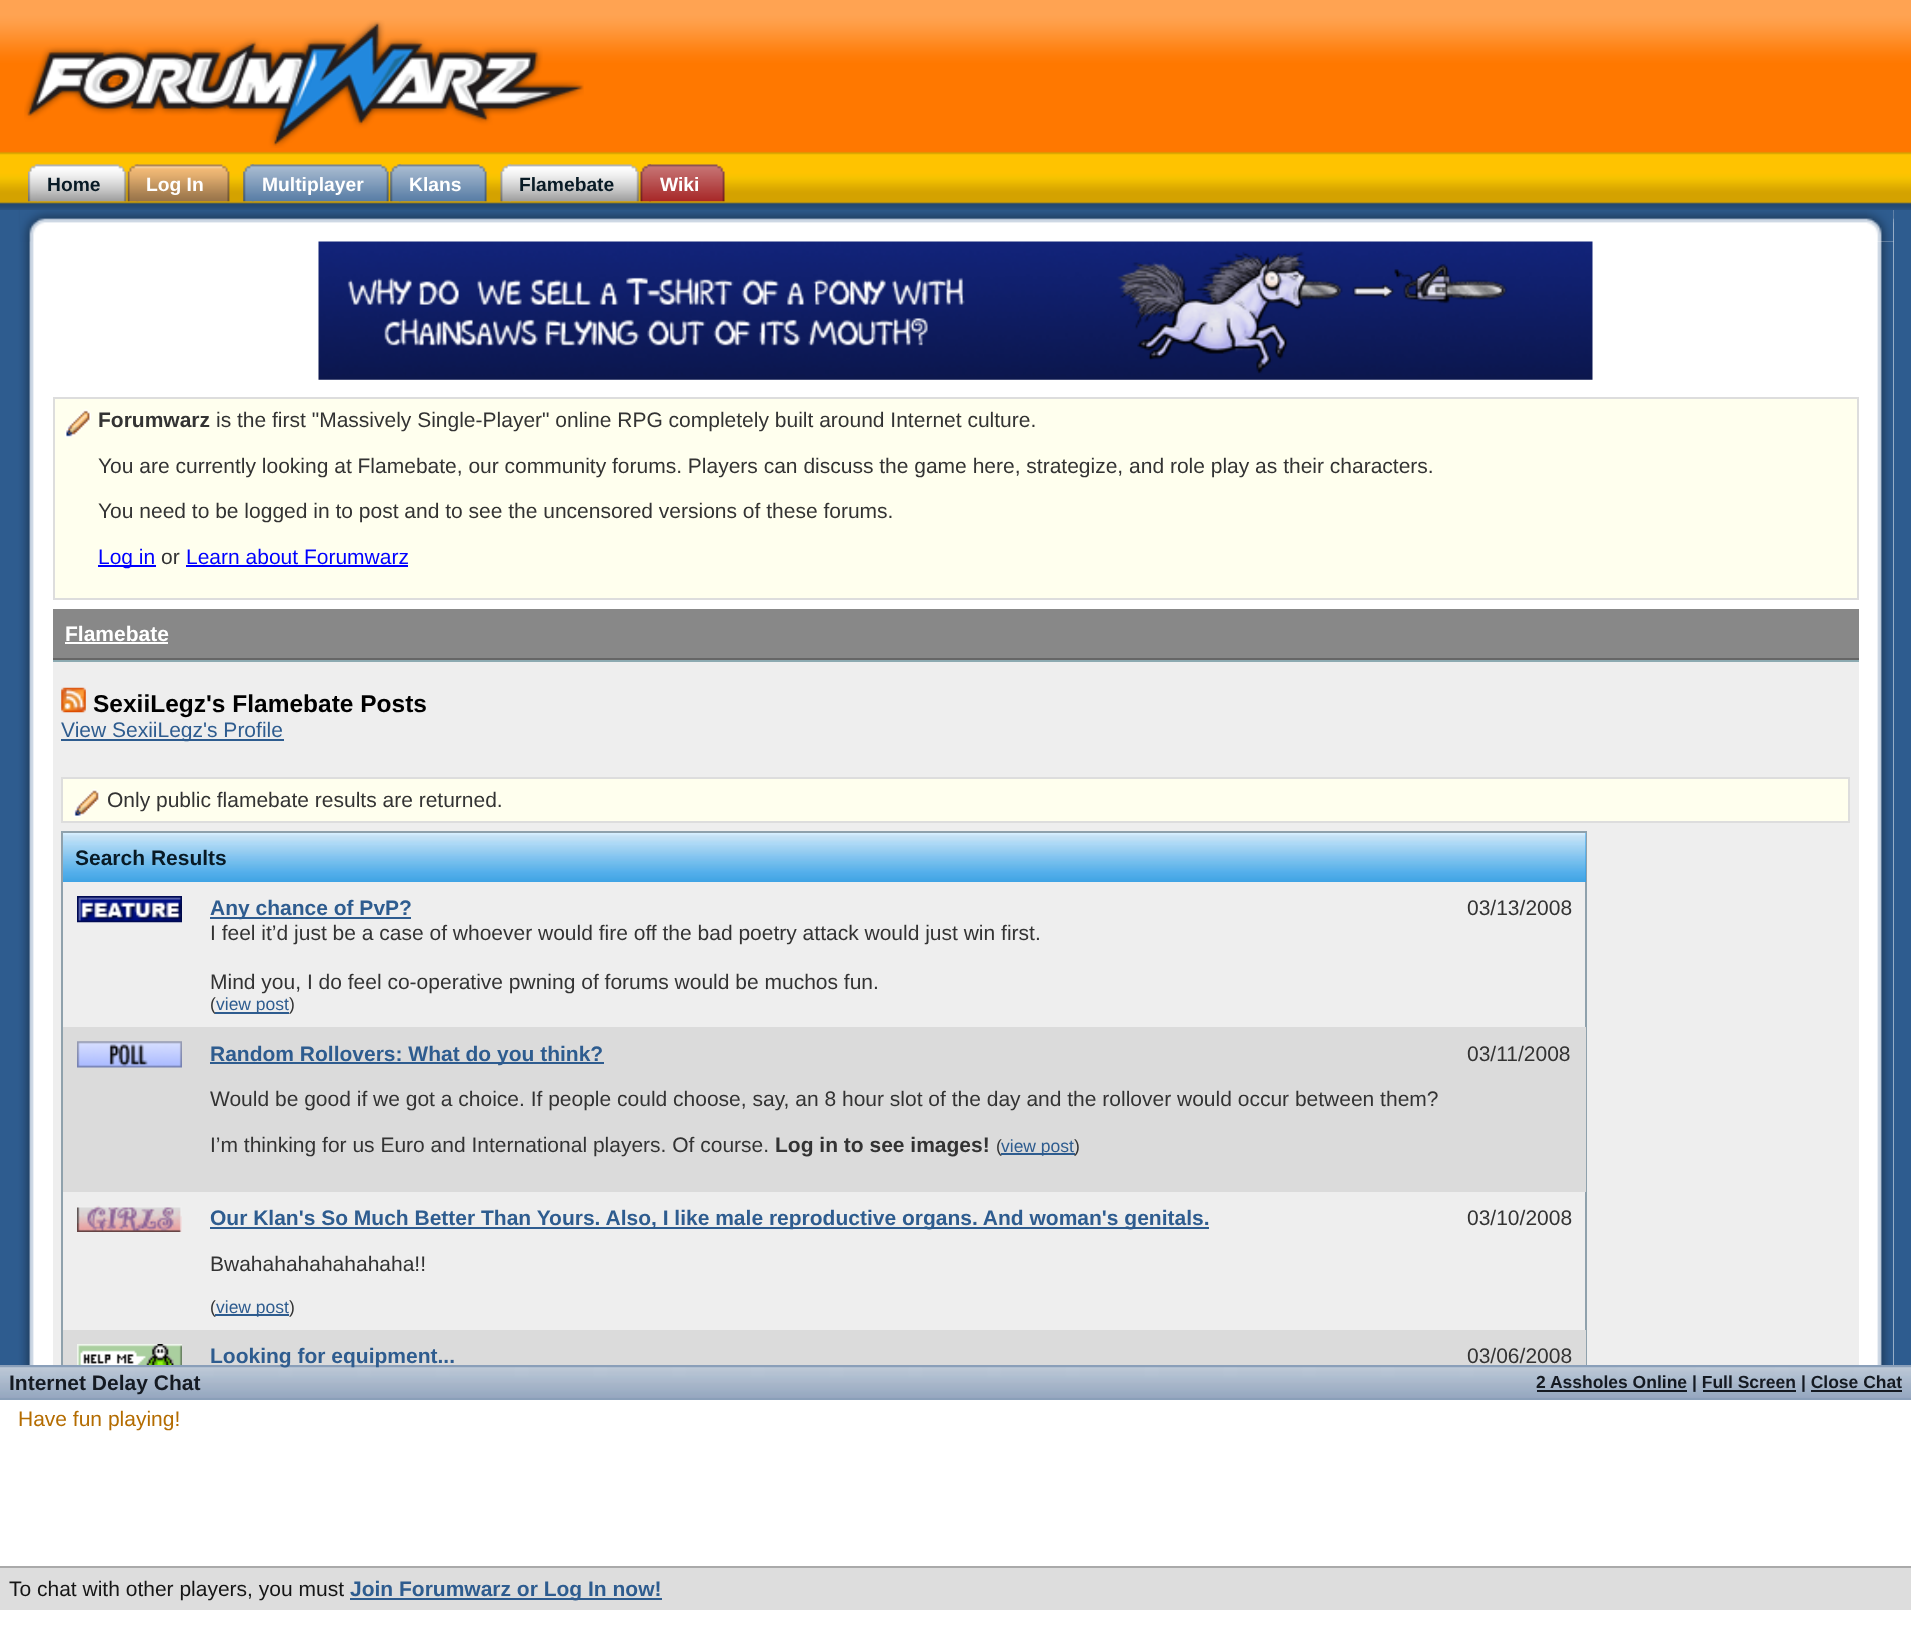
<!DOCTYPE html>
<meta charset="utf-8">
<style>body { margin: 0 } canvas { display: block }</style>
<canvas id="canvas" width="1911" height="1626"></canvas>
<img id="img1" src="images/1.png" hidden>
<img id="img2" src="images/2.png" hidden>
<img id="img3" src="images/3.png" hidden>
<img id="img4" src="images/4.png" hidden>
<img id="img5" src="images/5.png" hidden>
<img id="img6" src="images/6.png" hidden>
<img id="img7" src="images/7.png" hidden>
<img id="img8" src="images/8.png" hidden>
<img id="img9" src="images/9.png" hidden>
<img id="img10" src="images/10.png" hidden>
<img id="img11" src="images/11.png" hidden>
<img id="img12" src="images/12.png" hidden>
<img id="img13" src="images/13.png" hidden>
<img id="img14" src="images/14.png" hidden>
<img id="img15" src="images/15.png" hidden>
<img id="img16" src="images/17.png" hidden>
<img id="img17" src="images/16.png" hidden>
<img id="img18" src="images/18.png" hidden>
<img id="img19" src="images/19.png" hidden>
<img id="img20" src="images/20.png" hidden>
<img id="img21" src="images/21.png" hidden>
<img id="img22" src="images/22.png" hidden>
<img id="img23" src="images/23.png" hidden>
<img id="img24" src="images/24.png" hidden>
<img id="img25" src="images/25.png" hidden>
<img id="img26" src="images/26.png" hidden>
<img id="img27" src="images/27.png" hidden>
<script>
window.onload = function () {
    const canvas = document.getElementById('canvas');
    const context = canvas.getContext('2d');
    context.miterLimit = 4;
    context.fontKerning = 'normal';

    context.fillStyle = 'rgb(46, 92, 143)';
    context.fillRect(0, 0, 1911, 1626);
    context.drawImage(document.getElementById('img1'), 0, 0, 1911, 210);
    context.drawImage(document.getElementById('img2'), 24, 20, 560, 128);
    context.drawImage(document.getElementById('img3'), 28, 164, 11, 38);
    context.drawImage(document.getElementById('img4'), 36, 164, 91, 38);
    context.drawImage(document.getElementById('img5'), 127, 164, 12, 38);
    context.drawImage(document.getElementById('img6'), 136, 164, 94, 38);
    context.drawImage(document.getElementById('img7'), 243, 164, 11, 38);
    context.drawImage(document.getElementById('img8'), 252, 164, 137, 38);
    context.drawImage(document.getElementById('img7'), 390, 164, 11, 38);
    context.drawImage(document.getElementById('img9'), 399, 164, 88, 38);
    context.drawImage(document.getElementById('img10'), 500, 164, 11, 38);
    context.drawImage(document.getElementById('img11'), 509, 164, 131, 38);
    context.drawImage(document.getElementById('img12'), 640, 164, 11, 38);
    context.drawImage(document.getElementById('img13'), 649, 164, 76, 38);
    context.fillStyle = 'rgb(255, 255, 255)';
    context.fillRect(34, 210, 1860, 1155);
    context.drawImage(document.getElementById('img14'), 18, 210, 16, 1155);
    context.drawImage(document.getElementById('img15'), 20, 210, 1874, 32);
    context.drawImage(document.getElementById('img16'), 1877, 241, 17, 1124);
    context.drawImage(document.getElementById('img17'), 1867, 210, 27, 32);
    context.drawImage(document.getElementById('img18'), 318, 241, 1275, 139);
    context.fillStyle = 'rgb(255, 255, 238)';
    context.fillRect(55, 399, 1802, 199);
    context.drawImage(document.getElementById('img19'), 64, 409, 27, 29);
    context.strokeStyle = 'rgb(221, 221, 221)';
    context.lineWidth = 2;
    context.strokeRect(54, 398, 1804, 201);
    context.fillStyle = 'rgb(0, 0, 255)';
    context.fillRect(98, 565, 58, 2);
    context.fillRect(186, 565, 222, 2);
    context.fillStyle = 'rgb(136, 136, 136)';
    context.fillRect(53, 609, 1806, 49);
    context.fillStyle = 'rgb(102, 102, 102)';
    context.fillRect(53, 658, 1806, 2);
    context.fillStyle = 'rgb(255, 255, 255)';
    context.fillRect(65, 642, 103, 2);
    context.fillStyle = 'rgb(238, 238, 238)';
    context.fillRect(53, 662, 1806, 703);
    context.fillStyle = 'rgb(140, 170, 177)';
    context.fillRect(53, 660, 1806, 2);
    context.drawImage(document.getElementById('img20'), 61, 687, 25, 26);
    context.fillStyle = 'rgb(46, 92, 143)';
    context.fillRect(61, 739, 223, 2);
    context.fillStyle = 'rgb(255, 255, 238)';
    context.fillRect(63, 779, 1785, 42);
    context.drawImage(document.getElementById('img21'), 73, 789, 27, 29);
    context.strokeRect(62, 778, 1787, 44);
    context.strokeStyle = 'rgb(143, 161, 172)';
    context.strokeRect(62, 832, 1524, 595);
    context.fillStyle = 'rgb(43, 155, 229)';
    context.fillRect(1585, 833, 1, 49);
    context.drawImage(document.getElementById('img22'), 63, 833, 1523, 49);
    context.drawImage(document.getElementById('img23'), 77, 896, 105, 27);
    context.fillStyle = 'rgb(46, 92, 143)';
    context.fillRect(210, 917, 201, 2);
    context.fillStyle = 'rgb(219, 219, 219)';
    context.fillRect(63, 1027, 1523, 165);
    context.drawImage(document.getElementById('img24'), 77, 1041, 105, 27);
    context.fillStyle = 'rgb(46, 92, 143)';
    context.fillRect(210, 1062, 394, 2);
    context.drawImage(document.getElementById('img25'), 77, 1205, 105, 27);
    context.fillRect(210, 1227, 999, 2);
    context.fillStyle = 'rgb(219, 219, 219)';
    context.fillRect(63, 1330, 1523, 35);
    context.drawImage(document.getElementById('img26'), 77, 1344, 105, 21);
    context.fillStyle = 'rgb(255, 255, 255)';
    context.fillRect(0, 1400, 1911, 226);
    context.drawImage(document.getElementById('img27'), 0, 1367, 1911, 31);
    context.fillStyle = 'rgb(138, 159, 185)';
    context.fillRect(0, 1365, 1911, 2);
    context.fillRect(0, 1398, 1911, 2);
    context.fillStyle = 'rgb(21, 26, 34)';
    context.fillRect(1537, 1390, 150, 2);
    context.fillRect(1703, 1390, 93, 2);
    context.fillRect(1811, 1390, 91, 2);
    context.fillStyle = 'rgb(221, 221, 221)';
    context.fillRect(0, 1568, 1911, 42);
    context.fillStyle = 'rgb(170, 170, 170)';
    context.fillRect(0, 1566, 1911, 2);
    context.fillStyle = 'rgb(46, 92, 143)';
    context.fillRect(350, 1598, 312, 2);
    context.font = 'bold 19.25px Liberation Sans';
    context.fillStyle = 'rgb(8, 26, 37)';
    context.fillText('Home', 47, 191);
    context.fillStyle = 'rgb(255, 255, 255)';
    context.fillText('Log In', 146, 191);
    context.fillText('Multiplayer', 262, 191);
    context.fillText('Klans', 409, 191);
    context.fillStyle = 'rgb(8, 26, 37)';
    context.fillText('Flamebate', 519, 191);
    context.fillStyle = 'rgb(255, 255, 255)';
    context.fillText('Wiki', 660, 191);
    context.font = 'bold 21px Liberation Sans';
    context.fillStyle = 'rgb(51, 51, 51)';
    context.fillText('Forumwarz', 98, 427);
    context.font = '21px Liberation Sans';
    context.fillText('is the first "Massively Single-Player" online RPG completely built around Internet culture.', 216, 427);
    context.fillText('You are currently looking at Flamebate, our community forums. Players can discuss the game here, strategize, and role play as their characters.', 98, 473);
    context.fillText('You need to be logged in to post and to see the uncensored versions of these forums.', 98, 518);
    context.fillStyle = 'rgb(0, 0, 255)';
    context.fillText('Log in', 98, 564);
    context.fillStyle = 'rgb(51, 51, 51)';
    context.fillText('or', 161, 564);
    context.fillStyle = 'rgb(0, 0, 255)';
    context.fillText('Learn about Forumwarz', 186, 564);
    context.font = 'bold 21px Liberation Sans';
    context.fillStyle = 'rgb(255, 255, 255)';
    context.fillText('Flamebate', 65, 641);
    context.font = 'bold 24.5px Liberation Sans';
    context.fillStyle = 'rgb(0, 0, 0)';
    context.fillText('SexiiLegz\'s Flamebate Posts', 93, 712);
    context.font = '21px Liberation Sans';
    context.fillStyle = 'rgb(46, 92, 143)';
    context.fillText('View SexiiLegz\'s Profile', 61, 737);
    context.fillStyle = 'rgb(51, 51, 51)';
    context.fillText('Only public flamebate results are returned.', 107, 807);
    context.font = 'bold 21px Liberation Sans';
    context.fillStyle = 'rgb(8, 26, 37)';
    context.fillText('Search Results', 75, 865);
    context.fillStyle = 'rgb(46, 92, 143)';
    context.fillText('Any chance of PvP?', 210, 915);
    context.font = '21px Liberation Sans';
    context.fillStyle = 'rgb(51, 51, 51)';
    context.fillText('I feel it’d just be a case of whoever would fire off the bad poetry attack would just win first.', 210, 940);
    context.fillText('Mind you, I do feel co-operative pwning of forums would be muchos fun.', 210, 989);
    context.font = '17.5px Liberation Sans';
    context.fillText('(', 210, 1010);
    context.fillStyle = 'rgb(46, 92, 143)';
    context.fillRect(215, 1012, 74, 2);
    context.fillText('view post', 216, 1010);
    context.fillStyle = 'rgb(51, 51, 51)';
    context.fillText(')', 289, 1010);
    context.font = '21px Liberation Sans';
    context.fillText('03/13/2008', 1467, 915);
    context.font = 'bold 21px Liberation Sans';
    context.fillStyle = 'rgb(46, 92, 143)';
    context.fillText('Random Rollovers: What do you think?', 210, 1061);
    context.font = '21px Liberation Sans';
    context.fillStyle = 'rgb(51, 51, 51)';
    context.fillText('Would be good if we got a choice. If people could choose, say, an 8 hour slot of the day and the rollover would occur between them?', 210, 1106);
    context.fillText('I’m thinking for us Euro and International players. Of course.', 210, 1152);
    context.font = 'bold 21px Liberation Sans';
    context.fillText('Log in to see images!', 775, 1152);
    context.font = '17.5px Liberation Sans';
    context.fillText('(', 996, 1152);
    context.fillStyle = 'rgb(46, 92, 143)';
    context.fillRect(1001, 1153, 74, 2);
    context.fillText('view post', 1001, 1152);
    context.fillStyle = 'rgb(51, 51, 51)';
    context.fillText(')', 1074, 1152);
    context.font = '21px Liberation Sans';
    context.fillText('03/11/2008', 1467, 1061);
    context.font = 'bold 21px Liberation Sans';
    context.fillStyle = 'rgb(46, 92, 143)';
    context.fillText('Our Klan\'s So Much Better Than Yours. Also, I like male reproductive organs. And woman\'s genitals.', 210, 1225);
    context.font = '21px Liberation Sans';
    context.fillStyle = 'rgb(51, 51, 51)';
    context.fillText('Bwahahahahahahaha!!', 210, 1271);
    context.font = '17.5px Liberation Sans';
    context.fillText('(', 210, 1313);
    context.fillStyle = 'rgb(46, 92, 143)';
    context.fillRect(215, 1314, 74, 2);
    context.fillText('view post', 216, 1313);
    context.fillStyle = 'rgb(51, 51, 51)';
    context.fillText(')', 289, 1313);
    context.font = '21px Liberation Sans';
    context.fillText('03/10/2008', 1467, 1225);
    context.font = 'bold 21px Liberation Sans';
    context.fillStyle = 'rgb(46, 92, 143)';
    context.fillText('Looking for equipment...', 210, 1363);
    context.font = '21px Liberation Sans';
    context.fillStyle = 'rgb(51, 51, 51)';
    context.fillText('03/06/2008', 1467, 1363);
    context.font = 'bold 21px Liberation Sans';
    context.fillStyle = 'rgb(21, 26, 34)';
    context.fillText('Internet Delay Chat', 9, 1390);
    context.font = 'bold 17.5px Liberation Sans';
    context.fillText('2 Assholes Online | Full Screen | Close Chat', 1536, 1388);
    context.font = '21px Liberation Sans';
    context.fillStyle = 'rgb(180, 108, 0)';
    context.fillText('Have fun playing!', 18, 1426);
    context.fillStyle = 'rgb(21, 21, 21)';
    context.fillText('To chat with other players, you must', 9, 1596);
    context.font = 'bold 21px Liberation Sans';
    context.fillStyle = 'rgb(46, 92, 143)';
    context.fillText('Join Forumwarz or Log In now!', 350, 1596);
};
</script>
